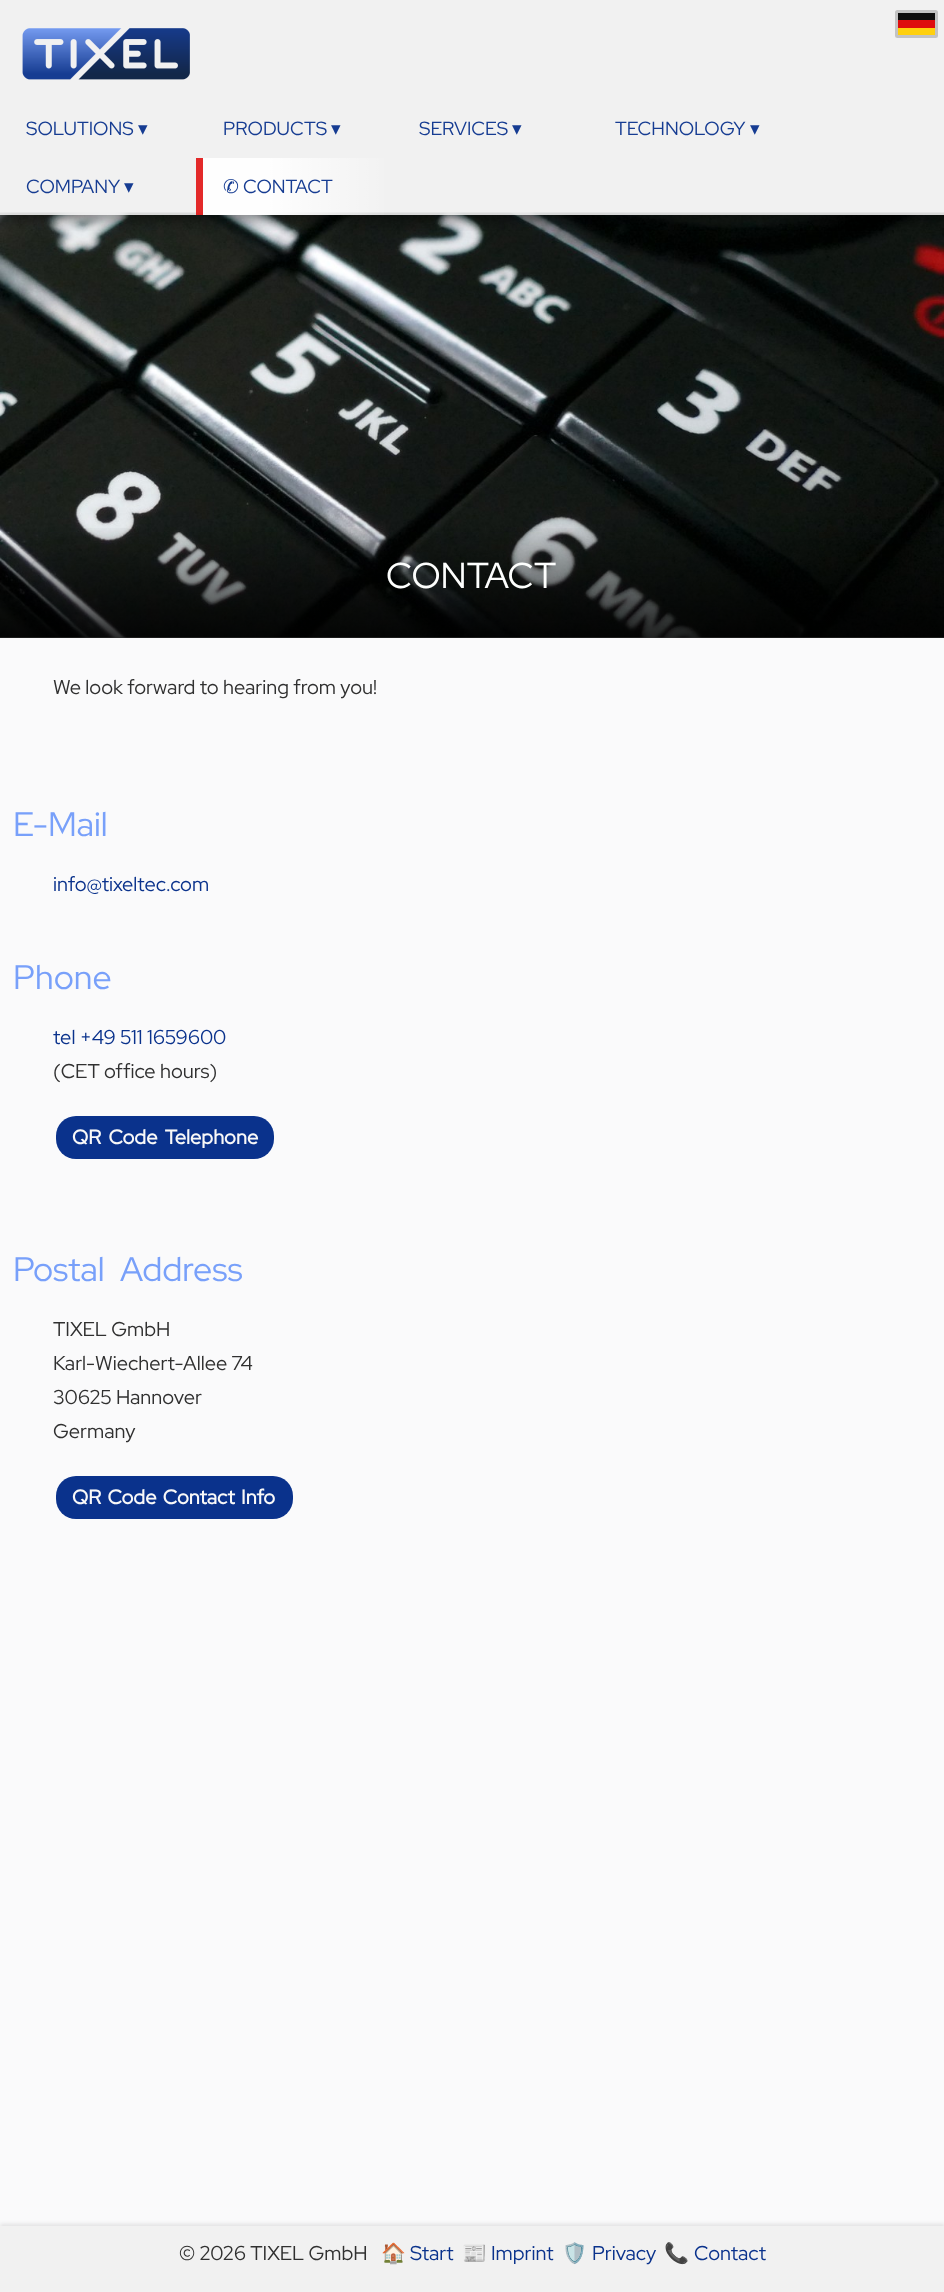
<!DOCTYPE html>
<meta charset="utf-8">
<style>body { margin: 0 } canvas { display: block }</style>
<canvas id="canvas" width="944" height="2292"></canvas>
<img id="img1" src="images/2.png" hidden>
<img id="img2" src="images/1.png" hidden>
<script>
window.onload = function () {
    const canvas = document.getElementById('canvas');
    const context = canvas.getContext('2d');
    context.miterLimit = 4;
    context.fontKerning = 'normal';
    let gradient;

    context.fillStyle = 'rgb(250, 250, 251)';
    context.fillRect(0, 0, 944, 2292);
    context.drawImage(document.getElementById('img1'), 0, 212, 944, 426);
    context.save();
    context.beginPath();
    context.rect(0, 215, 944, 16);
    context.clip();
    context.fillStyle = 'rgba(0, 0, 0, 0.38)';
    context.filter = 'blur(6px)';
    context.beginPath();
    context.rect(0, 6, 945, 215);
    context.fill();
    context.filter = 'none';
    context.restore();
    context.fillStyle = 'rgba(240, 240, 240, 0.9)';
    context.fillRect(0, 0, 944, 215);
    context.beginPath();
    context.roundRect(896.5, 11.5, 40, 25, 1);
    context.strokeStyle = 'rgb(195, 195, 195)';
    context.lineWidth = 3;
    context.stroke();
    context.fillStyle = 'rgb(13, 13, 13)';
    context.fillRect(898, 13, 37, 7);
    context.fillStyle = 'rgb(222, 13, 13)';
    context.fillRect(898, 20, 37, 8);
    context.fillStyle = 'rgb(255, 208, 13)';
    context.fillRect(898, 28, 37, 7);
    context.drawImage(document.getElementById('img2'), 22, 28, 168, 52);
    gradient = context.createLinearGradient(203, 186, 393, 186);
    gradient.addColorStop(0.33, 'rgba(255, 255, 255, 0.95)');
    gradient.addColorStop(1, 'rgba(255, 255, 255, 0)');
    context.fillStyle = gradient;
    context.fillRect(203, 158, 181, 57);
    context.fillStyle = 'rgba(226, 30, 29, 0.95)';
    context.fillRect(196, 158, 7, 57);
    gradient = context.createLinearGradient(473, 525, 473, 638);
    gradient.addColorStop(0, 'rgba(0, 0, 0, 0)');
    gradient.addColorStop(1, 'rgba(0, 0, 0, 0.8)');
    context.fillStyle = gradient;
    context.fillRect(0, 528, 944, 110);
    context.fillStyle = 'rgb(10, 50, 140)';
    context.beginPath();
    context.roundRect(56, 1116, 218, 43, 20);
    context.fill();
    context.beginPath();
    context.roundRect(56, 1476, 237, 43, 20);
    context.fill();
    context.save();
    context.beginPath();
    context.moveTo(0, 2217);
    context.lineTo(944, 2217);
    context.lineTo(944, 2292);
    context.lineTo(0, 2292);
    context.closePath();
    context.moveTo(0, 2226);
    context.lineTo(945, 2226);
    context.lineTo(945, 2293);
    context.lineTo(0, 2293);
    context.closePath();
    context.clip('evenodd');
    context.fillStyle = 'rgba(0, 0, 0, 0.1)';
    context.filter = 'blur(2px)';
    context.beginPath();
    context.rect(0, 2224, 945, 66);
    context.fill();
    context.filter = 'none';
    context.restore();
    context.fillStyle = 'rgba(240, 240, 240, 0.95)';
    context.fillRect(0, 2226, 944, 66);
    context.font = '19px Red Hat Display';
    context.fillStyle = 'rgb(22, 60, 146)';
    context.fillText('SOLUTIONS', 26, 135);
    context.font = '19px DejaVu Sans';
    context.fillText('▾', 138, 135);
    context.font = '19px Red Hat Display';
    context.fillText('PRODUCTS', 223, 135);
    context.font = '19px DejaVu Sans';
    context.fillText('▾', 331, 135);
    context.font = '19px Red Hat Display';
    context.fillText('SERVICES', 419, 135);
    context.font = '19px DejaVu Sans';
    context.fillText('▾', 512, 135);
    context.font = '19px Red Hat Display';
    context.fillText('TECHNOLOGY', 615, 135);
    context.font = '19px DejaVu Sans';
    context.fillText('▾', 750, 135);
    context.font = '19px Red Hat Display';
    context.fillText('COMPANY', 26, 193);
    context.font = '19px DejaVu Sans';
    context.fillText('▾', 124, 193);
    context.fillText('✆', 223, 193);
    context.font = '19px Red Hat Display';
    context.fillText('CONTACT', 243, 193);
    context.font = '36px Red Hat Display';
    context.fillStyle = 'rgb(254, 255, 254)';
    context.fillText('CONTACT', 386, 588);
    context.font = '20px Red Hat Display';
    context.fillStyle = 'rgb(48, 48, 48)';
    context.fillText('We look forward to hearing from you!', 53, 694);
    context.font = '34px Red Hat Display';
    context.fillStyle = 'rgb(120, 160, 250)';
    context.fillText('E-Mail', 13, 836);
    context.font = '20px Red Hat Display';
    context.fillStyle = 'rgb(10, 50, 140)';
    context.fillText('info@tixeltec.com', 53, 891);
    context.font = '34px Red Hat Display';
    context.fillStyle = 'rgb(120, 160, 250)';
    context.fillText('Phone', 13, 989);
    context.font = '20px Red Hat Display';
    context.fillStyle = 'rgb(10, 50, 140)';
    context.fillText('tel +49 511 1659600', 53, 1044);
    context.fillStyle = 'rgb(48, 48, 48)';
    context.fillText('(CET office hours)', 53, 1078);
    context.wordSpacing = '3px';
    context.font = 'bold 20px Red Hat Display';
    context.fillStyle = 'rgb(248, 248, 248)';
    context.fillText('QR Code Telephone', 72, 1144);
    context.wordSpacing = '8px';
    context.font = '34px Red Hat Display';
    context.fillStyle = 'rgb(120, 160, 250)';
    context.fillText('Postal Address', 13, 1281);
    context.wordSpacing = '0px';
    context.font = '20px Red Hat Display';
    context.fillStyle = 'rgb(48, 48, 48)';
    context.fillText('TIXEL GmbH', 53, 1336);
    context.fillText('Karl-Wiechert-Allee 74', 53, 1370);
    context.fillText('30625 Hannover', 53, 1404);
    context.fillText('Germany', 53, 1438);
    context.wordSpacing = '2px';
    context.font = 'bold 20px Red Hat Display';
    context.fillStyle = 'rgb(248, 248, 248)';
    context.fillText('QR Code Contact Info', 72, 1504);
    context.wordSpacing = '0px';
    context.font = '20px Red Hat Display';
    context.fillStyle = 'rgb(48, 48, 48)';
    context.fillText('© 2026 TIXEL GmbH', 179, 2260);
    context.font = '20px Noto Color Emoji';
    context.fillStyle = 'rgb(10, 50, 140)';
    context.fillText('🏠', 381, 2260);
    context.font = '20px Red Hat Display';
    context.fillText('Start', 410, 2260);
    context.font = '20px Noto Color Emoji';
    context.fillText('📰', 462, 2260);
    context.font = '20px Red Hat Display';
    context.fillText('Imprint', 491, 2260);
    context.font = '20px Noto Color Emoji';
    context.fillText('🛡️', 562, 2260);
    context.font = '20px Red Hat Display';
    context.fillText('Privacy', 592, 2260);
    context.font = '20px Noto Color Emoji';
    context.fillText('📞', 664, 2260);
    context.font = '20px Red Hat Display';
    context.fillText('Contact', 694, 2260);
};
</script>
